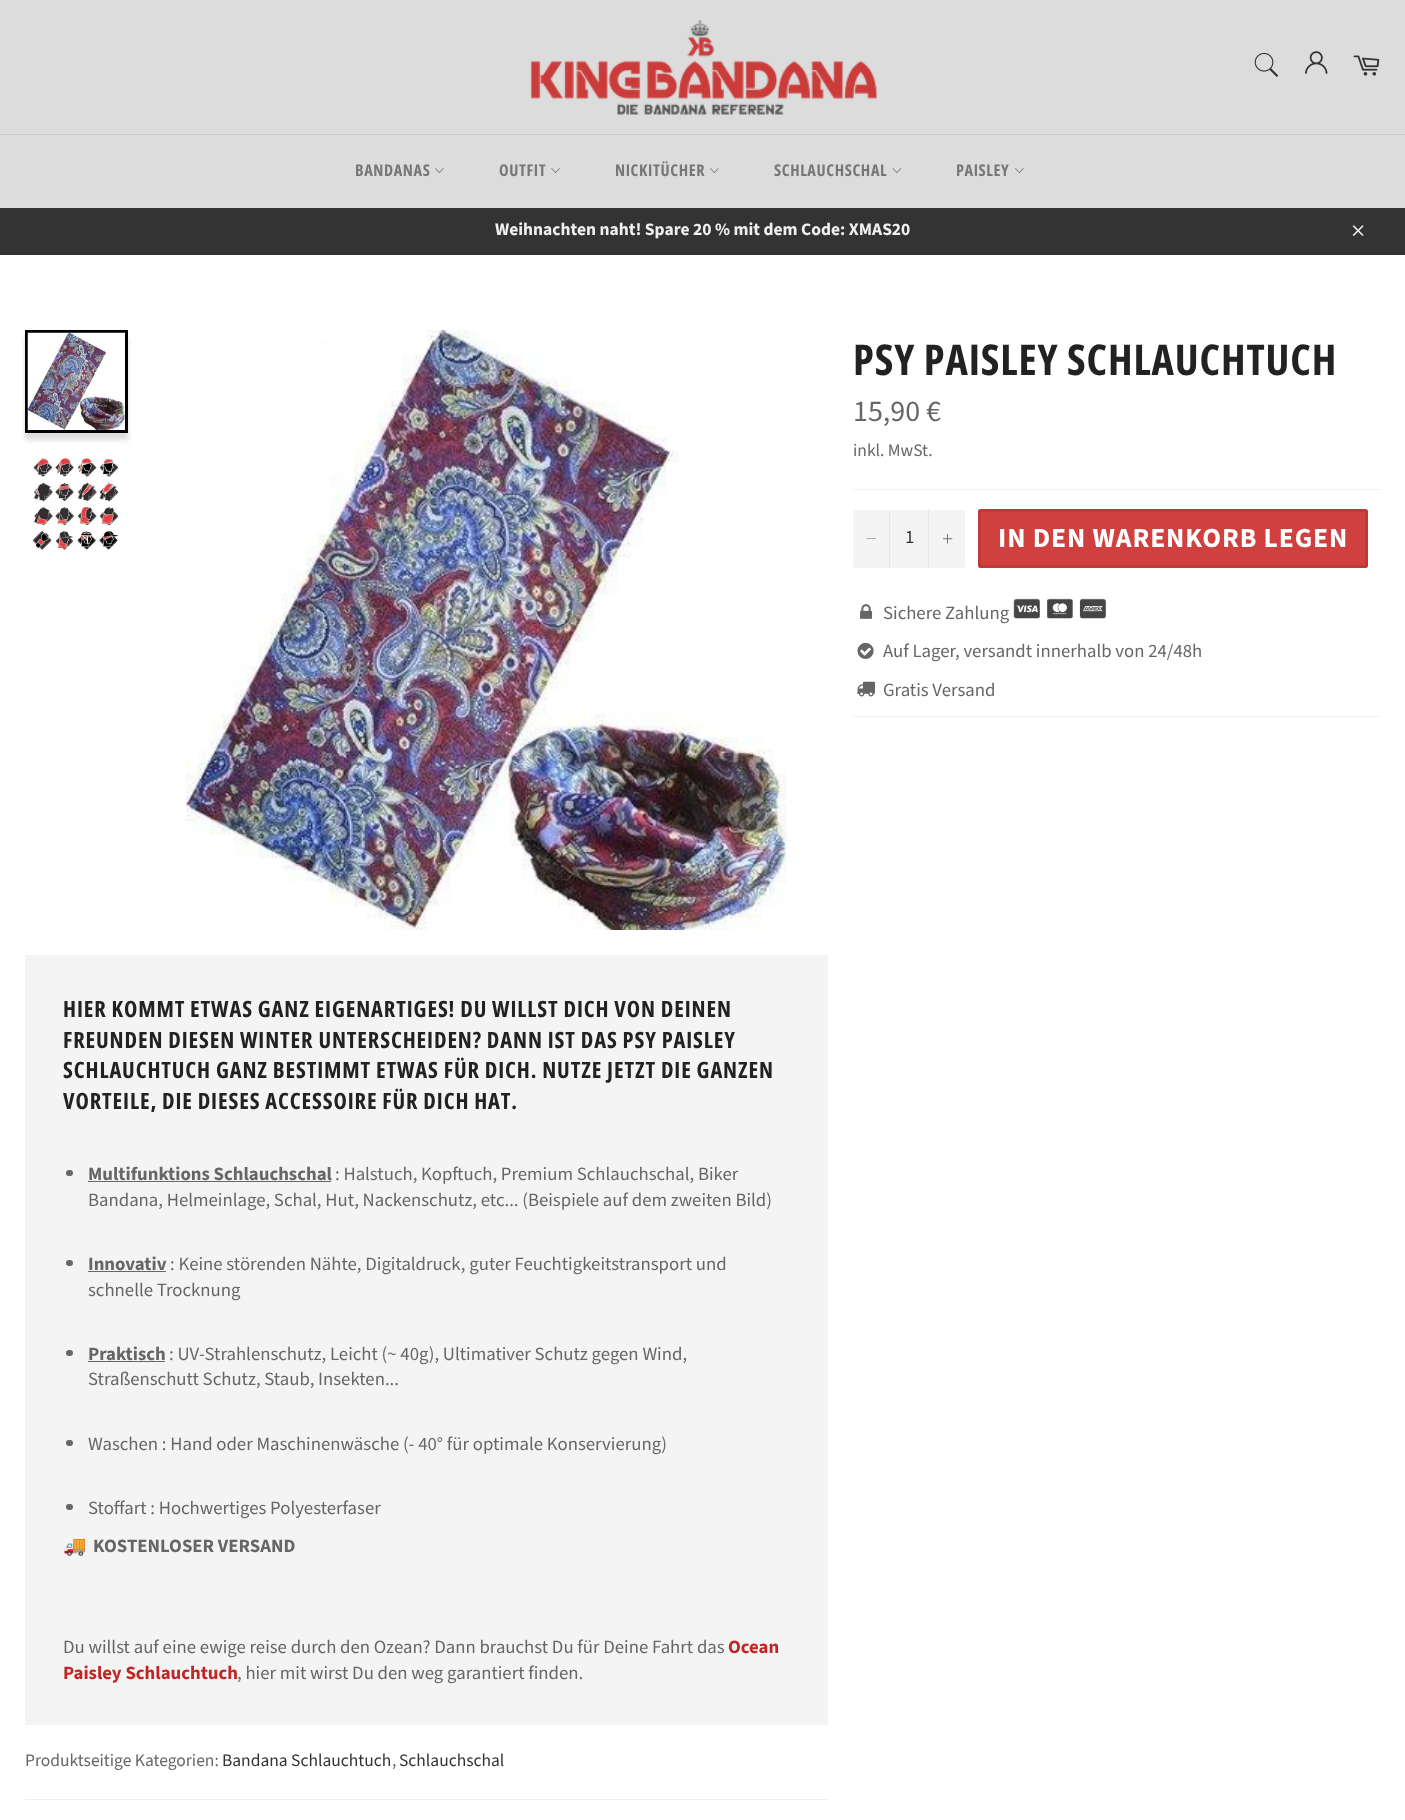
<!DOCTYPE html>
<meta charset="utf-8">
<style>body { margin: 0 } canvas { display: block }</style>
<canvas id="canvas" width="1405" height="1820"></canvas>
<img id="img1" src="images/1.png" hidden>
<img id="img2" src="images/2.png" hidden>
<img id="img3" src="images/3.png" hidden>
<img id="img4" src="images/4.png" hidden>
<img id="img5" src="images/5.png" hidden>
<img id="img6" src="images/6.png" hidden>
<img id="img7" src="images/7.png" hidden>
<img id="img8" src="images/8.png" hidden>
<img id="img9" src="images/9.png" hidden>
<img id="img10" src="images/10.png" hidden>
<img id="img11" src="images/11.png" hidden>
<img id="img12" src="images/12.png" hidden>
<img id="img13" src="images/13.png" hidden>
<img id="img14" src="images/14.png" hidden>
<img id="img15" src="images/15.png" hidden>
<img id="img16" src="images/16.png" hidden>
<script>
window.onload = function () {
    const canvas = document.getElementById('canvas');
    const context = canvas.getContext('2d');
    context.miterLimit = 4;
    context.fontKerning = 'normal';

    context.fillStyle = 'rgb(220, 220, 220)';
    context.fillRect(0, 0, 1405, 1820);
    context.drawImage(document.getElementById('img1'), 530, 20, 348, 95);
    context.drawImage(document.getElementById('img2'), 1254, 52, 25, 25);
    context.drawImage(document.getElementById('img3'), 1305, 51, 23, 23);
    context.drawImage(document.getElementById('img4'), 1353, 55, 27, 21);
    context.fillStyle = 'rgb(202, 202, 202)';
    context.fillRect(0, 134, 1405, 1);
    context.drawImage(document.getElementById('img5'), 435, 168, 9, 6);
    context.drawImage(document.getElementById('img6'), 551, 168, 9, 6);
    context.drawImage(document.getElementById('img5'), 710, 168, 9, 6);
    context.drawImage(document.getElementById('img7'), 892, 168, 10, 6);
    context.drawImage(document.getElementById('img5'), 1015, 168, 9, 6);
    context.fillStyle = 'rgb(51, 51, 51)';
    context.fillRect(0, 208, 1405, 47);
    context.drawImage(document.getElementById('img8'), 1352, 225, 12, 11);
    context.fillStyle = 'rgb(255, 255, 255)';
    context.fillRect(0, 255, 1405, 1565);
    context.fillStyle = 'rgb(240, 240, 240)';
    context.fillRect(853, 489, 527, 1);
    context.fillStyle = 'rgb(244, 244, 244)';
    context.beginPath();
    context.roundRect(853, 510, 112, 58, 2.5);
    context.fill();
    context.fillStyle = 'rgb(231, 231, 231)';
    context.fillRect(889, 510, 1, 58);
    context.fillStyle = 'rgb(102, 102, 102)';
    context.beginPath();
    context.moveTo(876, 538.5);
    context.lineTo(876, 539);
    context.lineTo(866.5, 539);
    context.lineTo(866.5, 538.5);
    context.closePath();
    context.fill('evenodd');
    context.fillStyle = 'rgb(231, 231, 231)';
    context.fillRect(928, 510, 1, 58);
    context.drawImage(document.getElementById('img9'), 943, 534, 10, 10);
    context.fillStyle = 'rgb(207, 64, 62)';
    context.beginPath();
    context.roundRect(979.5, 510.5, 387, 56, 1);
    context.fill();
    context.strokeStyle = 'rgb(190, 58, 56)';
    context.lineWidth = 3;
    context.stroke();
    context.drawImage(document.getElementById('img10'), 860, 604, 13, 15);
    context.drawImage(document.getElementById('img11'), 1013, 598, 94, 21);
    context.drawImage(document.getElementById('img12'), 857, 642, 17, 17);
    context.drawImage(document.getElementById('img13'), 857, 681, 18, 16);
    context.fillStyle = 'rgb(240, 240, 240)';
    context.fillRect(853, 716, 527, 1);
    context.fillStyle = 'rgba(199, 199, 199, 0.6)';
    context.filter = 'blur(2.5px)';
    context.beginPath();
    context.rect(25, 338, 103, 102);
    context.fill();
    context.filter = 'none';
    context.strokeStyle = 'rgb(0, 0, 0)';
    context.strokeRect(26.5, 331.5, 100, 100);
    context.drawImage(document.getElementById('img14'), 27, 332, 98, 98);
    context.drawImage(document.getElementById('img15'), 32, 458, 87, 92);
    context.drawImage(document.getElementById('img16'), 186, 330, 601, 600);
    context.fillStyle = 'rgb(244, 244, 244)';
    context.fillRect(25, 955, 803, 770);
    context.fillStyle = 'rgb(102, 102, 102)';
    context.beginPath();
    context.roundRect(66, 1170, 7, 6, 3);
    context.fill();
    context.fillRect(88, 1181, 243, 1);
    context.beginPath();
    context.roundRect(66, 1260, 7, 6, 3);
    context.fill();
    context.fillRect(88, 1271, 78, 1);
    context.beginPath();
    context.roundRect(66, 1350, 7, 6, 3);
    context.fill();
    context.fillRect(88, 1361, 77, 1);
    context.beginPath();
    context.roundRect(66, 1440, 7, 6, 3);
    context.fill();
    context.beginPath();
    context.roundRect(66, 1504, 7, 6, 3);
    context.fill();
    context.fillStyle = 'rgb(240, 240, 240)';
    context.fillRect(25, 1799, 803, 1);
    context.letterSpacing = '0.6px';
    context.font = 'bold 16.25px Open Sans Condensed';
    context.fillStyle = 'rgb(119, 119, 119)';
    context.fillText('BANDANAS', 355, 176);
    context.fillText('OUTFIT', 499, 176);
    context.fillText('NICKITÜCHER', 615, 176);
    context.fillText('SCHLAUCHSCHAL', 774, 176);
    context.fillText('PAISLEY', 956, 176);
    context.letterSpacing = '0px';
    context.font = 'bold 17.5px Source Sans Pro';
    context.fillStyle = 'rgb(240, 240, 240)';
    context.fillText('Weihnachten naht! Spare 20 % mit dem Code: XMAS20', 495, 235);
    context.letterSpacing = '0.88px';
    context.font = 'bold 42.5px Open Sans Condensed';
    context.fillStyle = 'rgb(34, 34, 34)';
    context.fillText('PSY PAISLEY SCHLAUCHTUCH', 853, 375);
    context.letterSpacing = '0px';
    context.font = '30px Source Sans Pro';
    context.fillStyle = 'rgb(102, 102, 102)';
    context.fillText('15,90 €', 853, 421);
    context.font = '17.5px Source Sans Pro';
    context.fillText('inkl. MwSt.', 853, 456);
    context.font = '18.75px Source Sans Pro';
    context.fillStyle = 'rgb(51, 51, 51)';
    context.fillText('1', 905, 543);
    context.letterSpacing = '0.88px';
    context.font = 'bold 27.5px Source Sans Pro';
    context.fillStyle = 'rgb(255, 255, 255)';
    context.fillText('IN DEN WARENKORB LEGEN', 998, 547);
    context.letterSpacing = '0px';
    context.font = '18.75px Source Sans Pro';
    context.fillStyle = 'rgb(102, 102, 102)';
    context.fillText('Sichere Zahlung', 883, 619);
    context.fillText('Auf Lager, versandt innerhalb von 24/48h', 883, 657);
    context.fillText('Gratis Versand', 883, 696);
    context.letterSpacing = '0.88px';
    context.font = 'bold 22.5px Open Sans Condensed';
    context.fillStyle = 'rgb(34, 34, 34)';
    context.fillText('HIER KOMMT ETWAS GANZ EIGENARTIGES! DU WILLST DICH VON DEINEN', 63, 1017);
    context.fillText('FREUNDEN DIESEN WINTER UNTERSCHEIDEN? DANN IST DAS PSY PAISLEY', 63, 1048);
    context.fillText('SCHLAUCHTUCH GANZ BESTIMMT ETWAS FÜR DICH. NUTZE JETZT DIE GANZEN', 63, 1078);
    context.fillText('VORTEILE, DIE DIESES ACCESSOIRE FÜR DICH HAT.', 63, 1109);
    context.letterSpacing = '0px';
    context.font = 'bold 18.75px Source Sans Pro';
    context.fillStyle = 'rgb(102, 102, 102)';
    context.fillText('Multifunktions Schlauchschal', 88, 1180);
    context.font = '18.75px Source Sans Pro';
    context.fillText(': Halstuch, Kopftuch, Premium Schlauchschal, Biker', 335, 1180);
    context.fillText('Bandana, Helmeinlage, Schal, Hut, Nackenschutz, etc... (Beispiele auf dem zweiten Bild)', 88, 1206);
    context.font = 'bold 18.75px Source Sans Pro';
    context.fillText('Innovativ', 88, 1270);
    context.font = '18.75px Source Sans Pro';
    context.fillText(': Keine störenden Nähte, Digitaldruck, guter Feuchtigkeitstransport und', 170, 1270);
    context.fillText('schnelle Trocknung', 88, 1296);
    context.font = 'bold 18.75px Source Sans Pro';
    context.fillText('Praktisch', 88, 1360);
    context.font = '18.75px Source Sans Pro';
    context.fillText(': UV', 169, 1360);
    context.fillText('-Strahlenschutz, Leicht (~ 40g), Ultimativer Schutz gegen Wind,', 199, 1360);
    context.fillText('Straßenschutt Schutz, Staub, Insekten...', 88, 1385);
    context.fillText('Waschen : Hand oder Maschinenwäsche (- 40° für optimale Konservierung)', 88, 1450);
    context.fillText('Stoffart : Hochwertiges Polyesterfaser', 88, 1514);
    context.font = 'bold 18.75px Noto Color Emoji';
    context.fillText('🚚', 63, 1552);
    context.font = 'bold 18.75px Source Sans Pro';
    context.fillText('KOSTENLOSER VERSAND', 93, 1552);
    context.font = '18.75px Source Sans Pro';
    context.fillText('Du willst auf eine ewige reise durch den Ozean? Dann brauchst Du für Deine Fahrt das', 63, 1653);
    context.font = 'bold 18.75px Source Sans Pro';
    context.fillStyle = 'rgb(194, 37, 37)';
    context.fillText('Ocean', 728, 1653);
    context.fillText('Paisley Schlauchtuch', 63, 1679);
    context.font = '18.75px Source Sans Pro';
    context.fillStyle = 'rgb(102, 102, 102)';
    context.fillText(', hier mit wirst Du den weg garantiert finden.', 237, 1679);
    context.font = '17.5px Source Sans Pro';
    context.fillText('Produktseitige Kategorien:', 25, 1766);
    context.fillStyle = 'rgb(51, 51, 51)';
    context.fillText('Bandana Schlauchtuch', 222, 1766);
    context.fillStyle = 'rgb(102, 102, 102)';
    context.fillText(',', 392, 1766);
    context.fillStyle = 'rgb(51, 51, 51)';
    context.fillText('Schlauchschal', 399, 1766);
};
</script>
